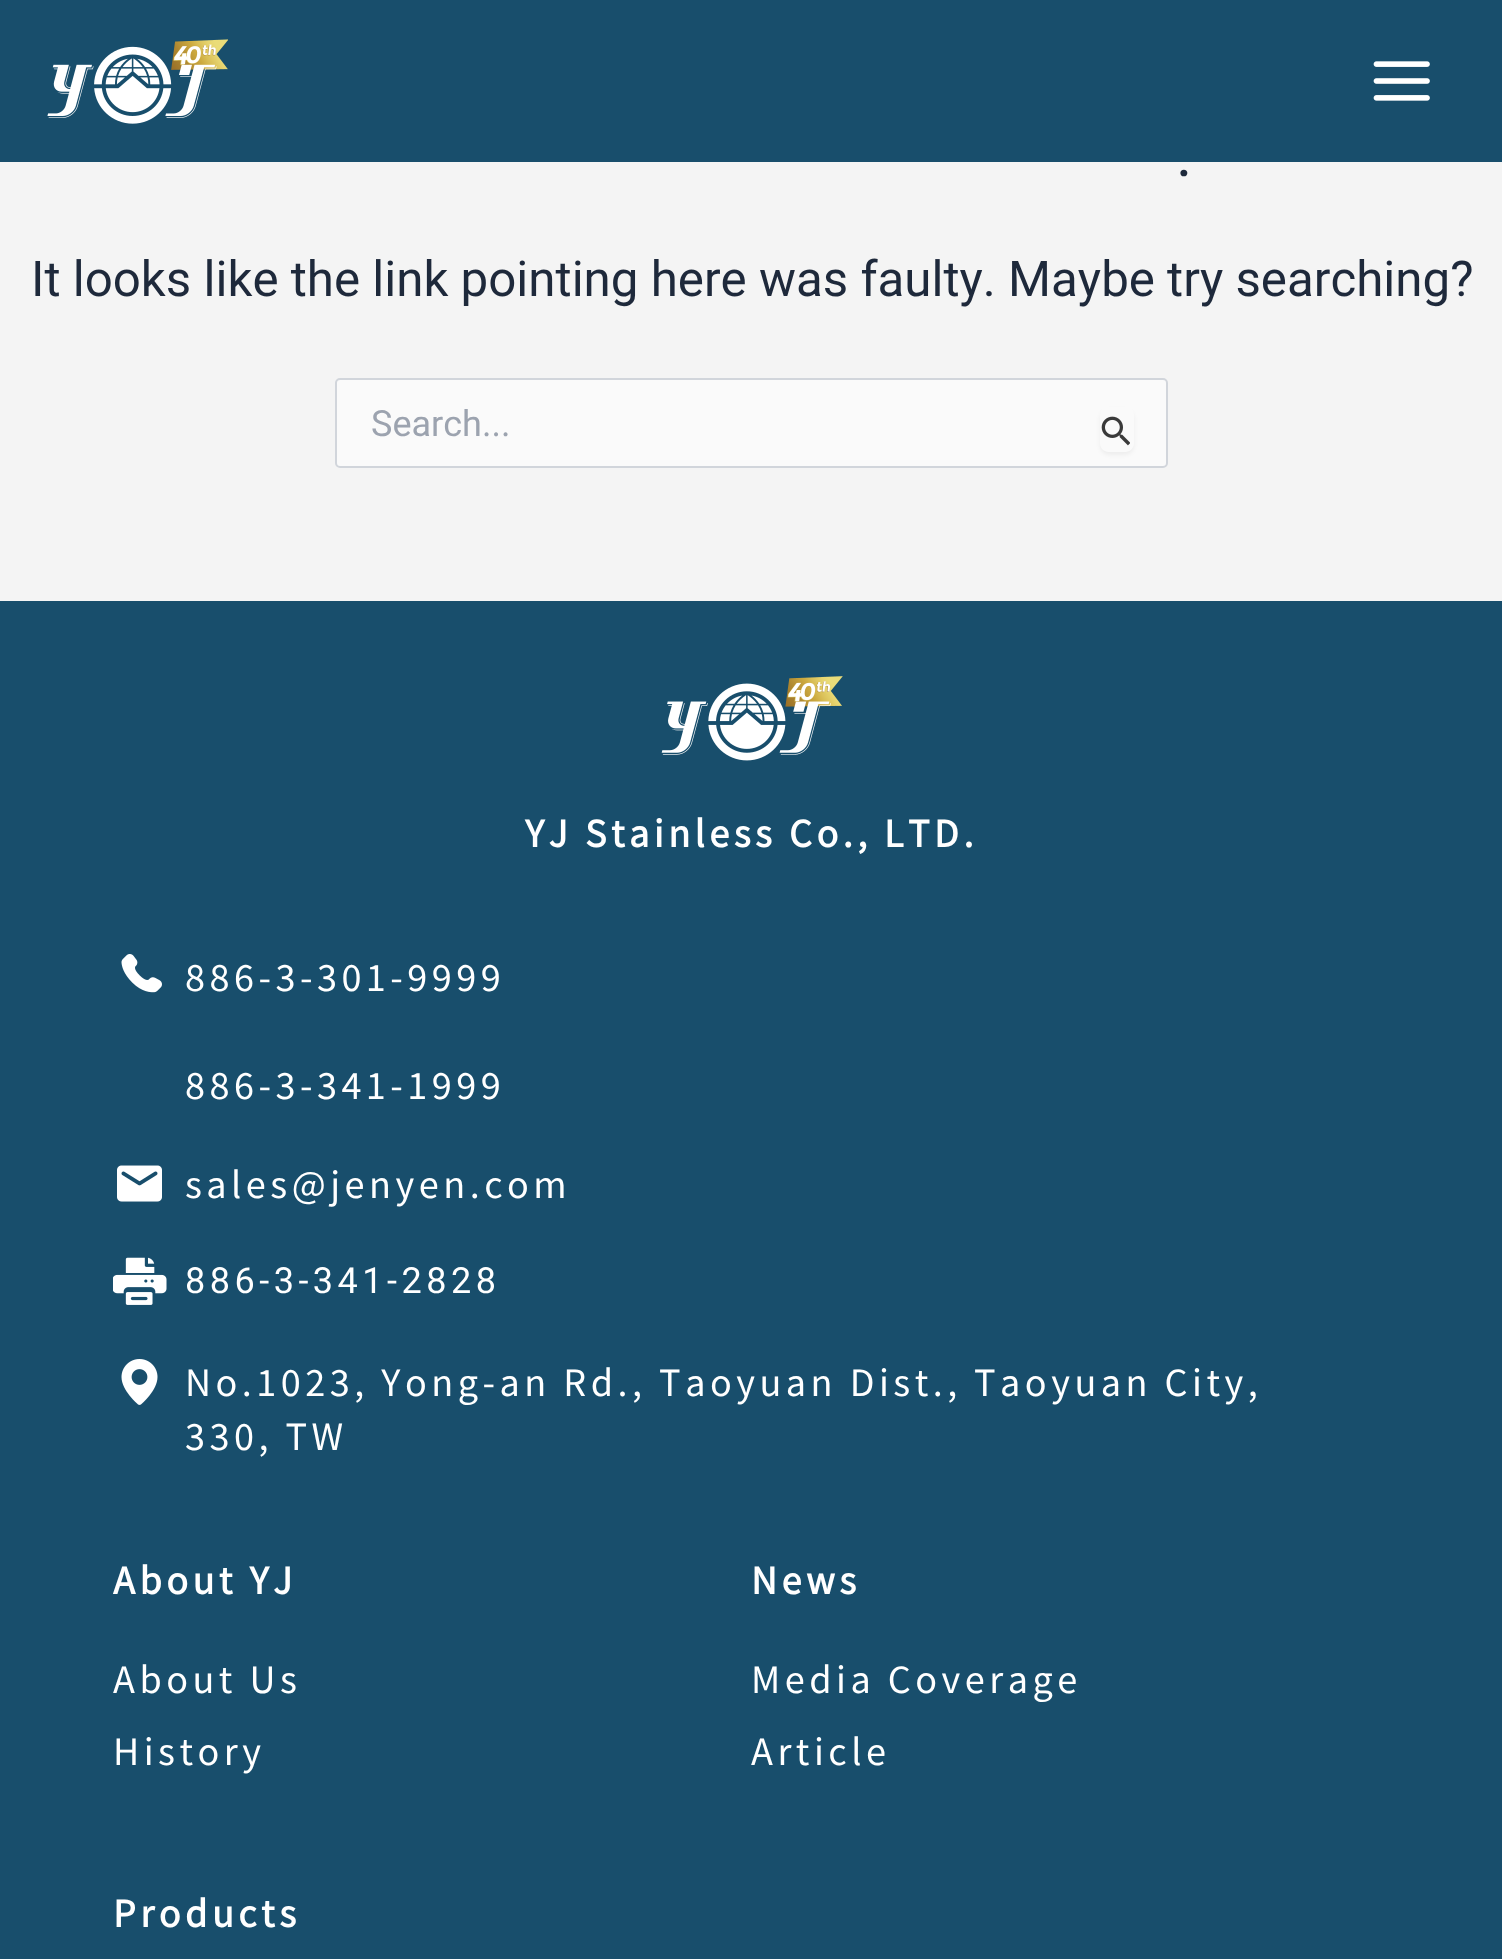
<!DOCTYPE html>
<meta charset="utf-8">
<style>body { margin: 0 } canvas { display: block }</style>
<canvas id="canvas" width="1502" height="1959"></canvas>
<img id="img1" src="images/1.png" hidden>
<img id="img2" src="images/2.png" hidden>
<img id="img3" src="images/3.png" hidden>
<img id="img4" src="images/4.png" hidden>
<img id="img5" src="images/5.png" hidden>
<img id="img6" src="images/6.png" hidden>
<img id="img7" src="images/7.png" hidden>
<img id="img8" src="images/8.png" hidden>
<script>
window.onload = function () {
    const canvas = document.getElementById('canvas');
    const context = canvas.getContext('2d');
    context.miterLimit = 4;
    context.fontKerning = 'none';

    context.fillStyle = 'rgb(244, 244, 244)';
    context.fillRect(0, 0, 1502, 1959);
    context.fillStyle = 'rgb(24, 78, 108)';
    context.fillRect(0, 0, 1502, 162);
    context.drawImage(document.getElementById('img1'), 47, 39, 181, 85);
    context.drawImage(document.getElementById('img2'), 1373, 61, 57, 40);
    context.fillStyle = 'rgb(250, 250, 250)';
    context.beginPath();
    context.roundRect(336, 379, 831, 88, 4);
    context.fill();
    context.strokeStyle = 'rgb(209, 213, 219)';
    context.lineWidth = 2;
    context.stroke();
    context.save();
    context.beginPath();
    context.moveTo(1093, 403);
    context.lineTo(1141, 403);
    context.lineTo(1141, 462);
    context.lineTo(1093, 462);
    context.closePath();
    context.moveTo(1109, 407);
    context.lineTo(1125, 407);
    context.bezierCurveTo(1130, 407, 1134, 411, 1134, 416);
    context.lineTo(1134, 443);
    context.bezierCurveTo(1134, 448, 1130, 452, 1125, 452);
    context.lineTo(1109, 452);
    context.bezierCurveTo(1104, 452, 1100, 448, 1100, 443);
    context.lineTo(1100, 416);
    context.bezierCurveTo(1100, 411, 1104, 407, 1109, 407);
    context.closePath();
    context.clip('evenodd');
    context.fillStyle = 'rgba(0, 0, 0, 0.05)';
    context.filter = 'blur(2px)';
    context.beginPath();
    context.roundRect(1100, 410, 34, 45, 9);
    context.fill();
    context.filter = 'none';
    context.restore();
    context.drawImage(document.getElementById('img3'), 1101, 416, 29, 30);
    context.fillStyle = 'rgb(24, 78, 108)';
    context.fillRect(0, 601, 1502, 1358);
    context.drawImage(document.getElementById('img4'), 661, 676, 182, 85);
    context.drawImage(document.getElementById('img5'), 121, 954, 41, 39);
    context.drawImage(document.getElementById('img6'), 117, 1165, 45, 37);
    context.drawImage(document.getElementById('img7'), 113, 1257, 54, 48);
    context.drawImage(document.getElementById('img8'), 121, 1359, 37, 46);
    context.font = '62px Roboto';
    context.fillStyle = 'rgb(30, 41, 59)';
    context.fillText('.', 1176, 176);
    context.font = '49.25px Roboto';
    context.fillText('It looks like the link pointing here was faulty. Maybe try searching?', 31, 296);
    context.font = '36px Roboto';
    context.fillStyle = 'rgb(156, 163, 175)';
    context.fillText('Search...', 371, 436);
    context.letterSpacing = '4.5px';
    context.font = 'bold 36px Noto Sans TC';
    context.fillStyle = 'rgb(255, 255, 255)';
    context.fillText('YJ Stainless Co.,', 525, 847);
    context.fillText('LTD.', 884, 847);
    context.font = '100 36px Noto Sans TC';
    context.fillText('886-3-301-9999', 185, 991);
    context.fillText('886-3-341-1999', 185, 1099);
    context.fillText('sales@jenyen.com', 185, 1198);
    context.font = '36px Roboto';
    context.fillText('886-3-341-2828', 185, 1293);
    context.font = '100 36px Noto Sans TC';
    context.fillText('No.1023, Yong-an Rd., Taoyuan Dist.,', 185, 1396);
    context.fillText('Taoyuan City,', 974, 1396);
    context.fillText('330, TW', 185, 1450);
    context.font = 'bold 36px Noto Sans TC';
    context.fillText('About YJ', 113, 1594);
    context.font = '100 36px Noto Sans TC';
    context.fillText('About Us', 113, 1693);
    context.fillText('History', 113, 1765);
    context.font = 'bold 36px Noto Sans TC';
    context.fillText('News', 751, 1594);
    context.font = '100 36px Noto Sans TC';
    context.fillText('Media Coverage', 751, 1693);
    context.fillText('Article', 751, 1765);
    context.font = 'bold 36px Noto Sans TC';
    context.fillText('Products', 113, 1927);
};
</script>
